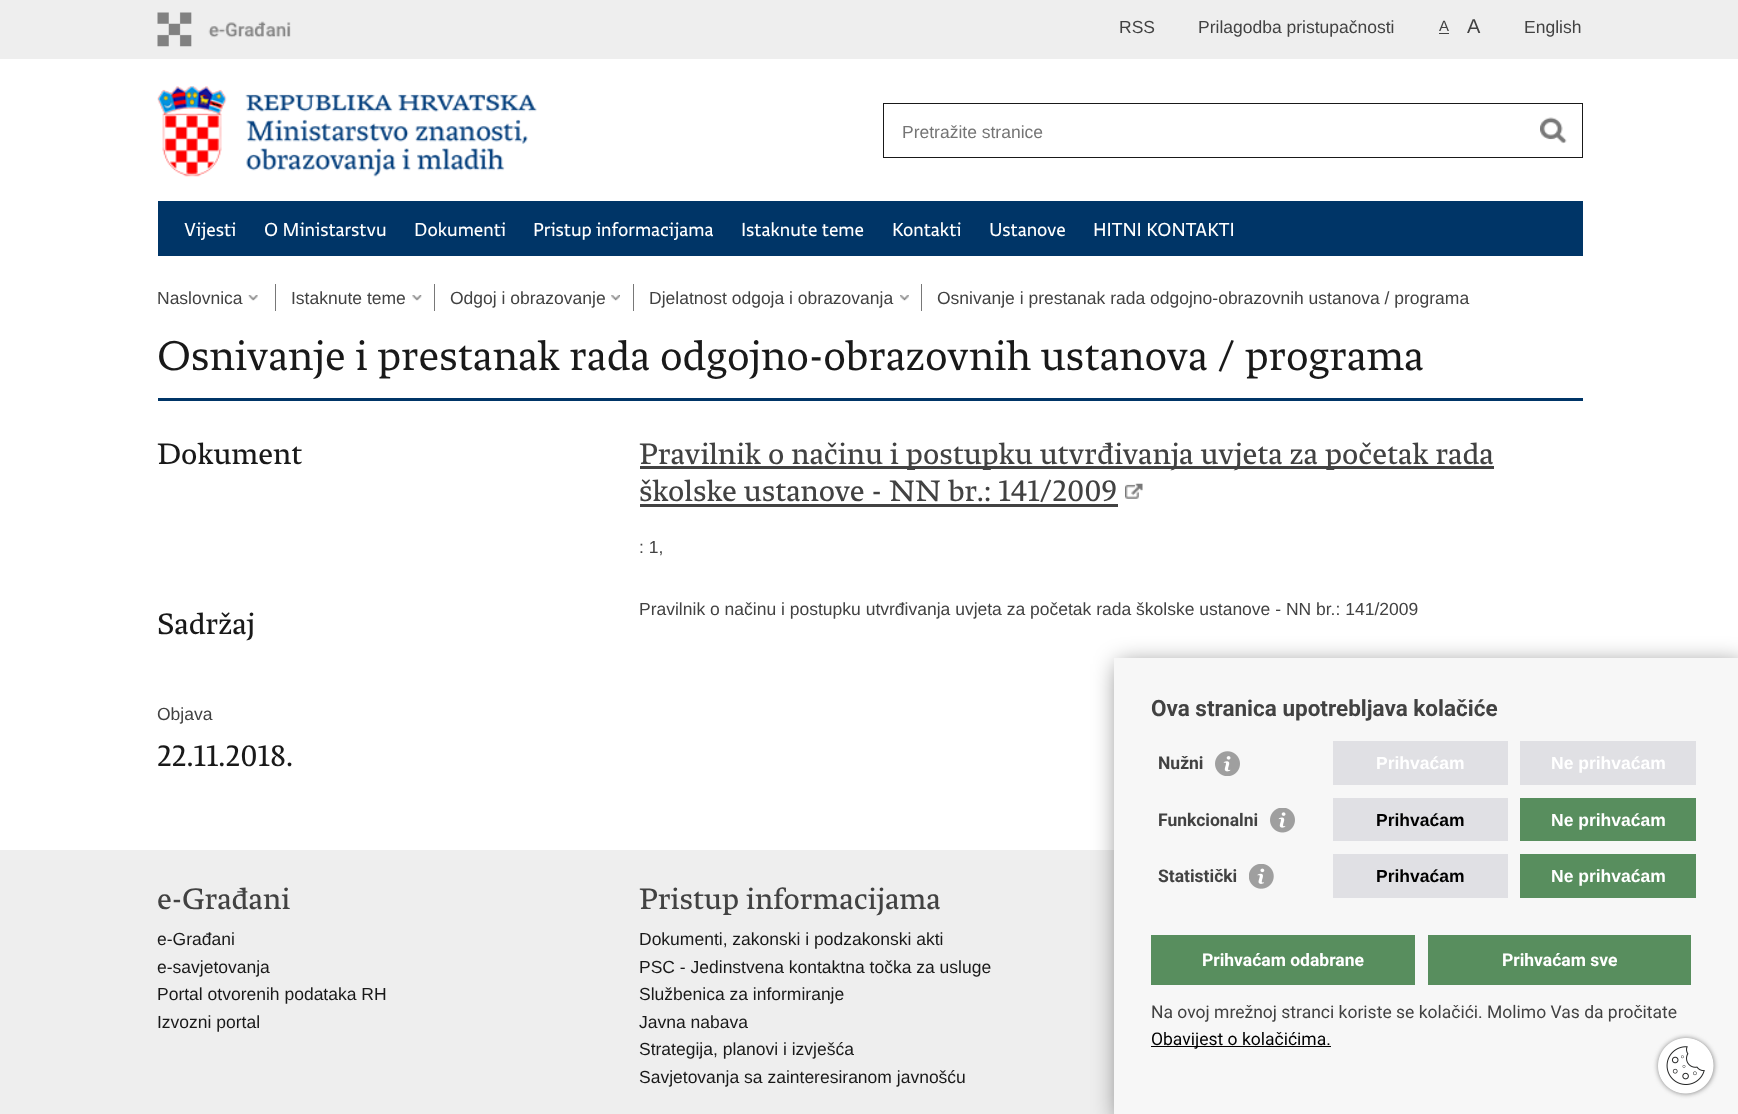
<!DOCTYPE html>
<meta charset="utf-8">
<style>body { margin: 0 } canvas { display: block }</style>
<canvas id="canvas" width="1738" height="1114"></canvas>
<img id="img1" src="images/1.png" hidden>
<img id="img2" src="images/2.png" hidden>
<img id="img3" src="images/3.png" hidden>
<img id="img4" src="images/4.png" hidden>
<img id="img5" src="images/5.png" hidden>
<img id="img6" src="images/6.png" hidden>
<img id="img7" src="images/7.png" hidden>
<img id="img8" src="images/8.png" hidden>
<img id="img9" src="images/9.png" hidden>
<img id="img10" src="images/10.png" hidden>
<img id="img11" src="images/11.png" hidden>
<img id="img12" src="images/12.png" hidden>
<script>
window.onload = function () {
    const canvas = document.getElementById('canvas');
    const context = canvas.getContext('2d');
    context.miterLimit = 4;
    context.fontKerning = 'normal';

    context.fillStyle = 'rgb(255, 255, 255)';
    context.fillRect(0, 0, 1738, 1114);
    context.fillStyle = 'rgb(238, 238, 238)';
    context.fillRect(0, 0, 1738, 59);
    context.drawImage(document.getElementById('img1'), 157, 12, 134, 35);
    context.fillStyle = 'rgb(66, 66, 66)';
    context.fillRect(1439, 33, 10, 1);
    context.drawImage(document.getElementById('img2'), 157, 86, 380, 91);
    context.strokeStyle = 'rgb(25, 25, 25)';
    context.strokeRect(883.5, 103.5, 699, 54);
    context.drawImage(document.getElementById('img3'), 1540, 117, 27, 27);
    context.fillStyle = 'rgb(0, 53, 103)';
    context.fillRect(158, 201, 1425, 55);
    context.drawImage(document.getElementById('img4'), 248, 295, 10, 6);
    context.fillStyle = 'rgb(120, 120, 120)';
    context.fillRect(275, 284, 1, 27);
    context.drawImage(document.getElementById('img5'), 412, 295, 10, 6);
    context.fillRect(434, 284, 1, 27);
    context.drawImage(document.getElementById('img6'), 611, 295, 9, 6);
    context.fillRect(633, 284, 1, 27);
    context.drawImage(document.getElementById('img7'), 900, 295, 9, 6);
    context.fillRect(921, 284, 1, 27);
    context.fillStyle = 'rgb(0, 53, 103)';
    context.fillRect(158, 398, 1425, 3);
    context.fillStyle = 'rgb(66, 66, 66)';
    context.fillRect(640, 466, 854, 3);
    context.fillRect(640, 504, 478, 3);
    context.drawImage(document.getElementById('img8'), 1125, 483, 18, 16);
    context.fillStyle = 'rgb(238, 238, 238)';
    context.fillRect(0, 850, 1114, 264);
    context.fillStyle = 'rgba(0, 0, 0, 0.5)';
    context.filter = 'blur(12.5px)';
    context.beginPath();
    context.rect(1118, 664, 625, 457);
    context.fill();
    context.filter = 'none';
    context.fillStyle = 'rgb(247, 247, 247)';
    context.fillRect(1114, 658, 624, 456);
    context.drawImage(document.getElementById('img9'), 1215, 751, 25, 25);
    context.fillStyle = 'rgb(224, 224, 228)';
    context.fillRect(1333, 741, 175, 44);
    context.fillRect(1520, 741, 176, 44);
    context.drawImage(document.getElementById('img10'), 1270, 808, 25, 25);
    context.fillRect(1333, 798, 175, 43);
    context.fillStyle = 'rgb(88, 142, 94)';
    context.fillRect(1520, 798, 176, 43);
    context.drawImage(document.getElementById('img11'), 1249, 864, 25, 25);
    context.fillStyle = 'rgb(224, 224, 228)';
    context.fillRect(1333, 854, 175, 44);
    context.fillStyle = 'rgb(88, 142, 94)';
    context.fillRect(1520, 854, 176, 44);
    context.fillRect(1151, 935, 264, 50);
    context.fillRect(1428, 935, 263, 50);
    context.fillStyle = 'rgb(0, 0, 0)';
    context.fillRect(1151, 1046, 180, 1);
    context.fillStyle = 'rgb(133, 133, 133)';
    context.filter = 'blur(2.5px)';
    context.beginPath();
    context.roundRect(1658, 1038, 56, 56, 28);
    context.fill();
    context.filter = 'none';
    context.drawImage(document.getElementById('img12'), 1658, 1038, 56, 56);
    context.font = '17.5px Liberation Sans';
    context.fillStyle = 'rgb(66, 66, 66)';
    context.fillText('RSS', 1119, 33);
    context.fillText('Prilagodba pristupačnosti', 1198, 33);
    context.font = '15px Liberation Sans';
    context.fillText('A', 1439, 31);
    context.font = '20px Liberation Sans';
    context.fillText('A', 1467, 33);
    context.font = '17.5px Liberation Sans';
    context.fillText('English', 1524, 33);
    context.fillStyle = 'rgb(117, 117, 117)';
    context.fillText('Pretražite stranice', 902, 138);
    context.font = '20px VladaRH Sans';
    context.fillStyle = 'rgb(255, 255, 255)';
    context.fillText('Vijesti', 184, 236);
    context.fillText('O Ministarstvu', 264, 236);
    context.fillText('Dokumenti', 414, 236);
    context.fillText('Pristup informacijama', 533, 236);
    context.fillText('Istaknute teme', 741, 236);
    context.fillText('Kontakti', 892, 236);
    context.fillText('Ustanove', 989, 236);
    context.fillText('HITNI KONTAKTI', 1093, 236);
    context.font = '17.5px Liberation Sans';
    context.fillStyle = 'rgb(66, 66, 66)';
    context.fillText('Naslovnica', 157, 304);
    context.fillText('Istaknute teme', 291, 304);
    context.fillText('Odgoj i obrazovanje', 450, 304);
    context.fillText('Djelatnost odgoja i obrazovanja', 649, 304);
    context.fillText('Osnivanje i prestanak rada odgojno-obrazovnih ustanova / programa', 937, 304);
    context.font = '43.75px "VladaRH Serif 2"';
    context.fillStyle = 'rgb(25, 25, 25)';
    context.fillText('Osnivanje i prestanak rada odgojno-obrazovnih ustanova / programa', 157, 370);
    context.font = '31.25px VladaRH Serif';
    context.fillText('Dokument', 157, 464);
    context.fillStyle = 'rgb(66, 66, 66)';
    context.fillText('Pravilnik o načinu i postupku utvrđivanja uvjeta za početak rada', 639, 464);
    context.fillText('školske ustanove - NN br.: 141/2009', 639, 501);
    context.font = '17.5px Liberation Sans';
    context.fillText(': 1,', 639, 553);
    context.font = '31.25px VladaRH Serif';
    context.fillStyle = 'rgb(25, 25, 25)';
    context.fillText('Sadržaj', 157, 634);
    context.font = '17.5px Liberation Sans';
    context.fillStyle = 'rgb(66, 66, 66)';
    context.fillText('Pravilnik o načinu i postupku utvrđivanja uvjeta za početak rada školske ustanove - NN br.: 141/2009', 639, 615);
    context.fillText('Objava', 157, 720);
    context.font = '31.25px VladaRH Serif';
    context.fillStyle = 'rgb(25, 25, 25)';
    context.fillText('22.11.2018.', 157, 766);
    context.fillStyle = 'rgb(66, 66, 66)';
    context.fillText('e-Građani', 157, 909);
    context.font = '17.5px Liberation Sans';
    context.fillStyle = 'rgb(25, 25, 25)';
    context.fillText('e-Građani', 157, 945);
    context.fillText('e-savjetovanja', 157, 973);
    context.fillText('Portal otvorenih podataka RH', 157, 1000);
    context.fillText('Izvozni portal', 157, 1028);
    context.font = '31.25px VladaRH Serif';
    context.fillStyle = 'rgb(66, 66, 66)';
    context.fillText('Pristup informacijama', 639, 909);
    context.font = '17.5px Liberation Sans';
    context.fillStyle = 'rgb(25, 25, 25)';
    context.fillText('Dokumenti, zakonski i podzakonski akti', 639, 945);
    context.fillText('PSC - Jedinstvena kontaktna točka za usluge', 639, 973);
    context.fillText('Službenica za informiranje', 639, 1000);
    context.fillText('Javna nabava', 639, 1028);
    context.fillText('Strategija, planovi i izvješća', 639, 1055);
    context.fillText('Savjetovanja sa zainteresiranom javnošću', 639, 1083);
    context.font = 'bold 22.5px Roboto';
    context.fillStyle = 'rgb(66, 66, 66)';
    context.fillText('Ova stranica upotrebljava kolačiće', 1151, 716);
    context.font = 'bold 17.5px Roboto';
    context.fillText('Nužni', 1158, 769);
    context.font = 'bold 17.5px Liberation Sans';
    context.fillStyle = 'rgb(255, 255, 255)';
    context.fillText('Prihvaćam', 1376, 769);
    context.fillText('Ne prihvaćam', 1551, 769);
    context.font = 'bold 17.5px Roboto';
    context.fillStyle = 'rgb(66, 66, 66)';
    context.fillText('Funkcionalni', 1158, 826);
    context.font = 'bold 17.5px Liberation Sans';
    context.fillStyle = 'rgb(0, 0, 0)';
    context.fillText('Prihvaćam', 1376, 826);
    context.fillStyle = 'rgb(255, 255, 255)';
    context.fillText('Ne prihvaćam', 1551, 826);
    context.font = 'bold 17.5px Roboto';
    context.fillStyle = 'rgb(66, 66, 66)';
    context.fillText('Statistički', 1158, 882);
    context.font = 'bold 17.5px Liberation Sans';
    context.fillStyle = 'rgb(0, 0, 0)';
    context.fillText('Prihvaćam', 1376, 882);
    context.fillStyle = 'rgb(255, 255, 255)';
    context.fillText('Ne prihvaćam', 1551, 882);
    context.font = 'bold 17.5px Roboto';
    context.fillText('Prihvaćam odabrane', 1202, 966);
    context.fillText('Prihvaćam sve', 1502, 966);
    context.font = '17.5px Roboto';
    context.fillStyle = 'rgb(66, 66, 66)';
    context.fillText('Na ovoj mrežnoj stranci koriste se kolačići. Molimo Vas da pročitate', 1151, 1018);
    context.fillStyle = 'rgb(0, 0, 0)';
    context.fillText('Obavijest o kolačićima.', 1151, 1045);
};
</script>
